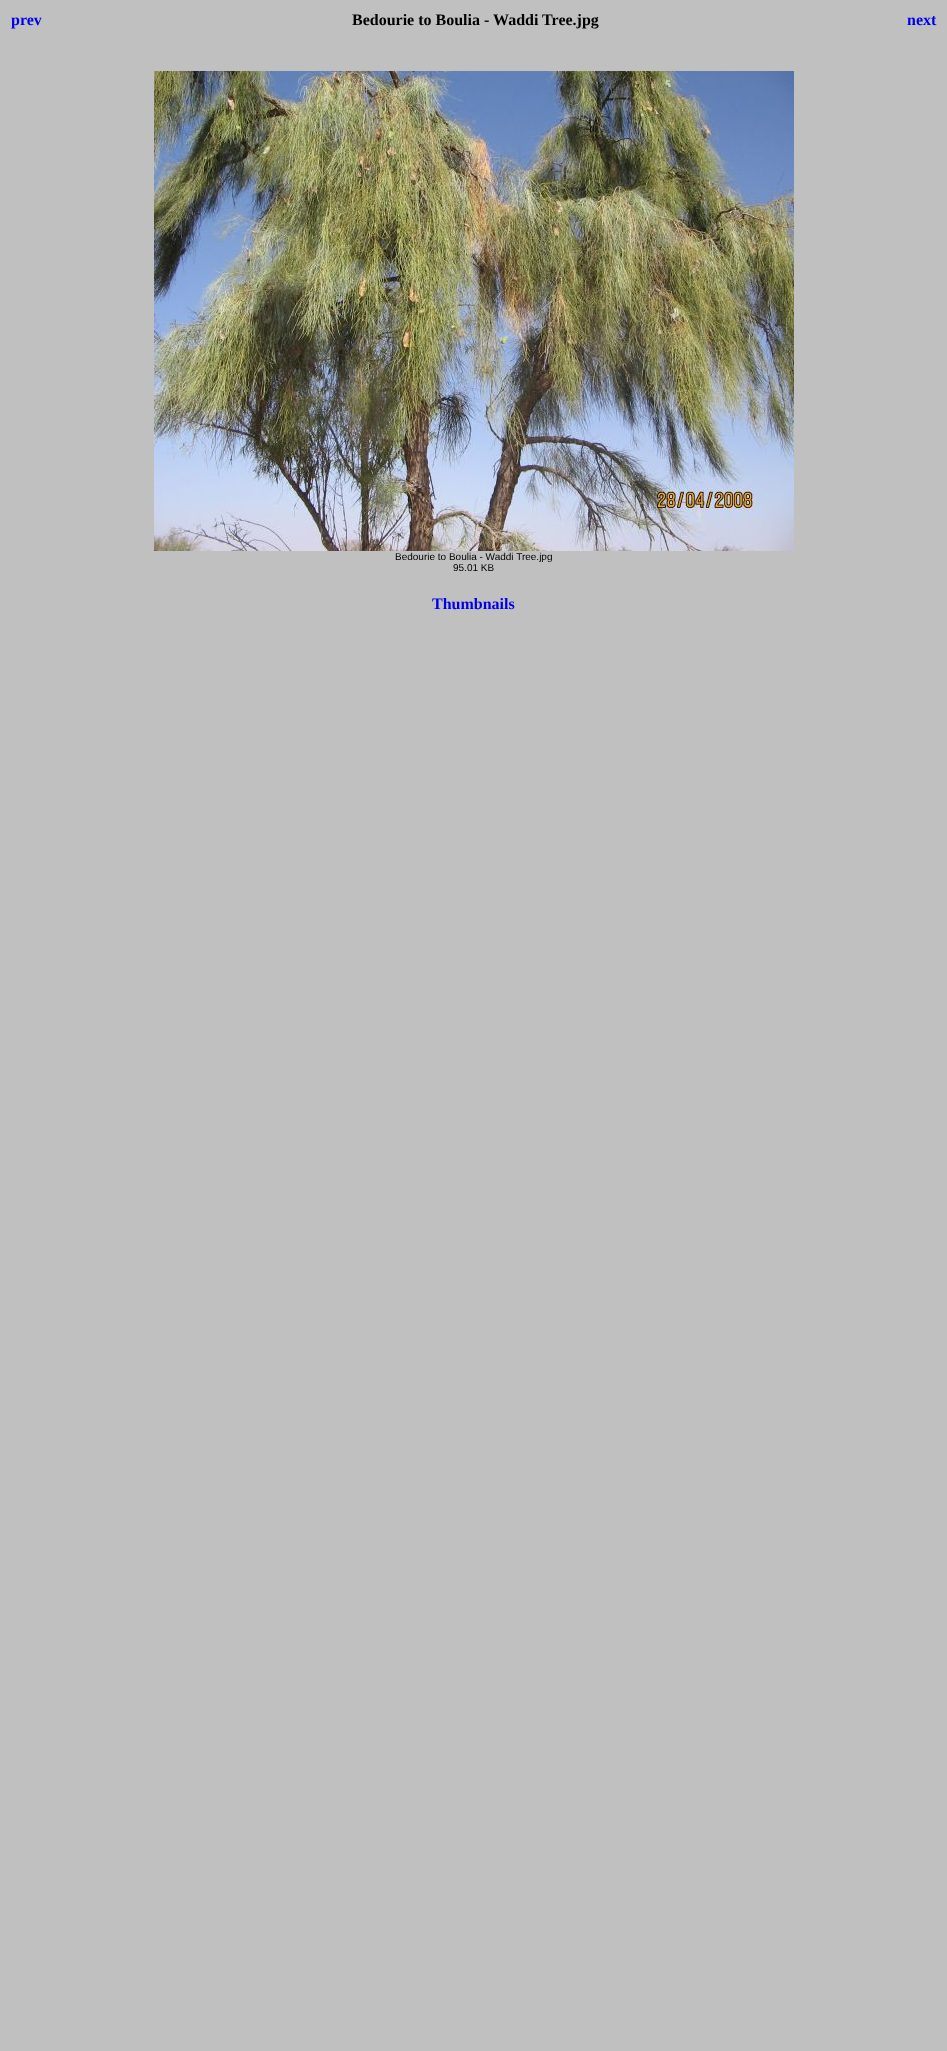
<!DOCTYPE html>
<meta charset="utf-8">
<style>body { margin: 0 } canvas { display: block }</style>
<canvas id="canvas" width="947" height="2051"></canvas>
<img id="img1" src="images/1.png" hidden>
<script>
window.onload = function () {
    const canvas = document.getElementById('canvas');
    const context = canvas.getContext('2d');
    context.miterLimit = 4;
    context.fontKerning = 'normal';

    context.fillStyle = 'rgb(192, 192, 192)';
    context.fillRect(0, 0, 947, 2051);
    context.drawImage(document.getElementById('img1'), 154, 71, 640, 480);
    context.font = 'bold 16px Liberation Serif';
    context.fillStyle = 'rgb(0, 0, 238)';
    context.fillText('prev', 11, 25);
    context.fillStyle = 'rgb(0, 0, 0)';
    context.fillText('Bedourie to Boulia - Waddi Tree.jpg', 352, 25);
    context.fillStyle = 'rgb(0, 0, 238)';
    context.fillText('next', 907, 25);
    context.font = '10px Liberation Sans';
    context.fillStyle = 'rgb(0, 0, 0)';
    context.fillText('Bedourie to Boulia - Waddi Tree.jpg', 395, 560);
    context.fillText('95.01 KB', 453, 571);
    context.font = 'bold 16px Liberation Serif';
    context.fillStyle = 'rgb(0, 0, 238)';
    context.fillText('Thumbnails', 432, 609);
};
</script>
